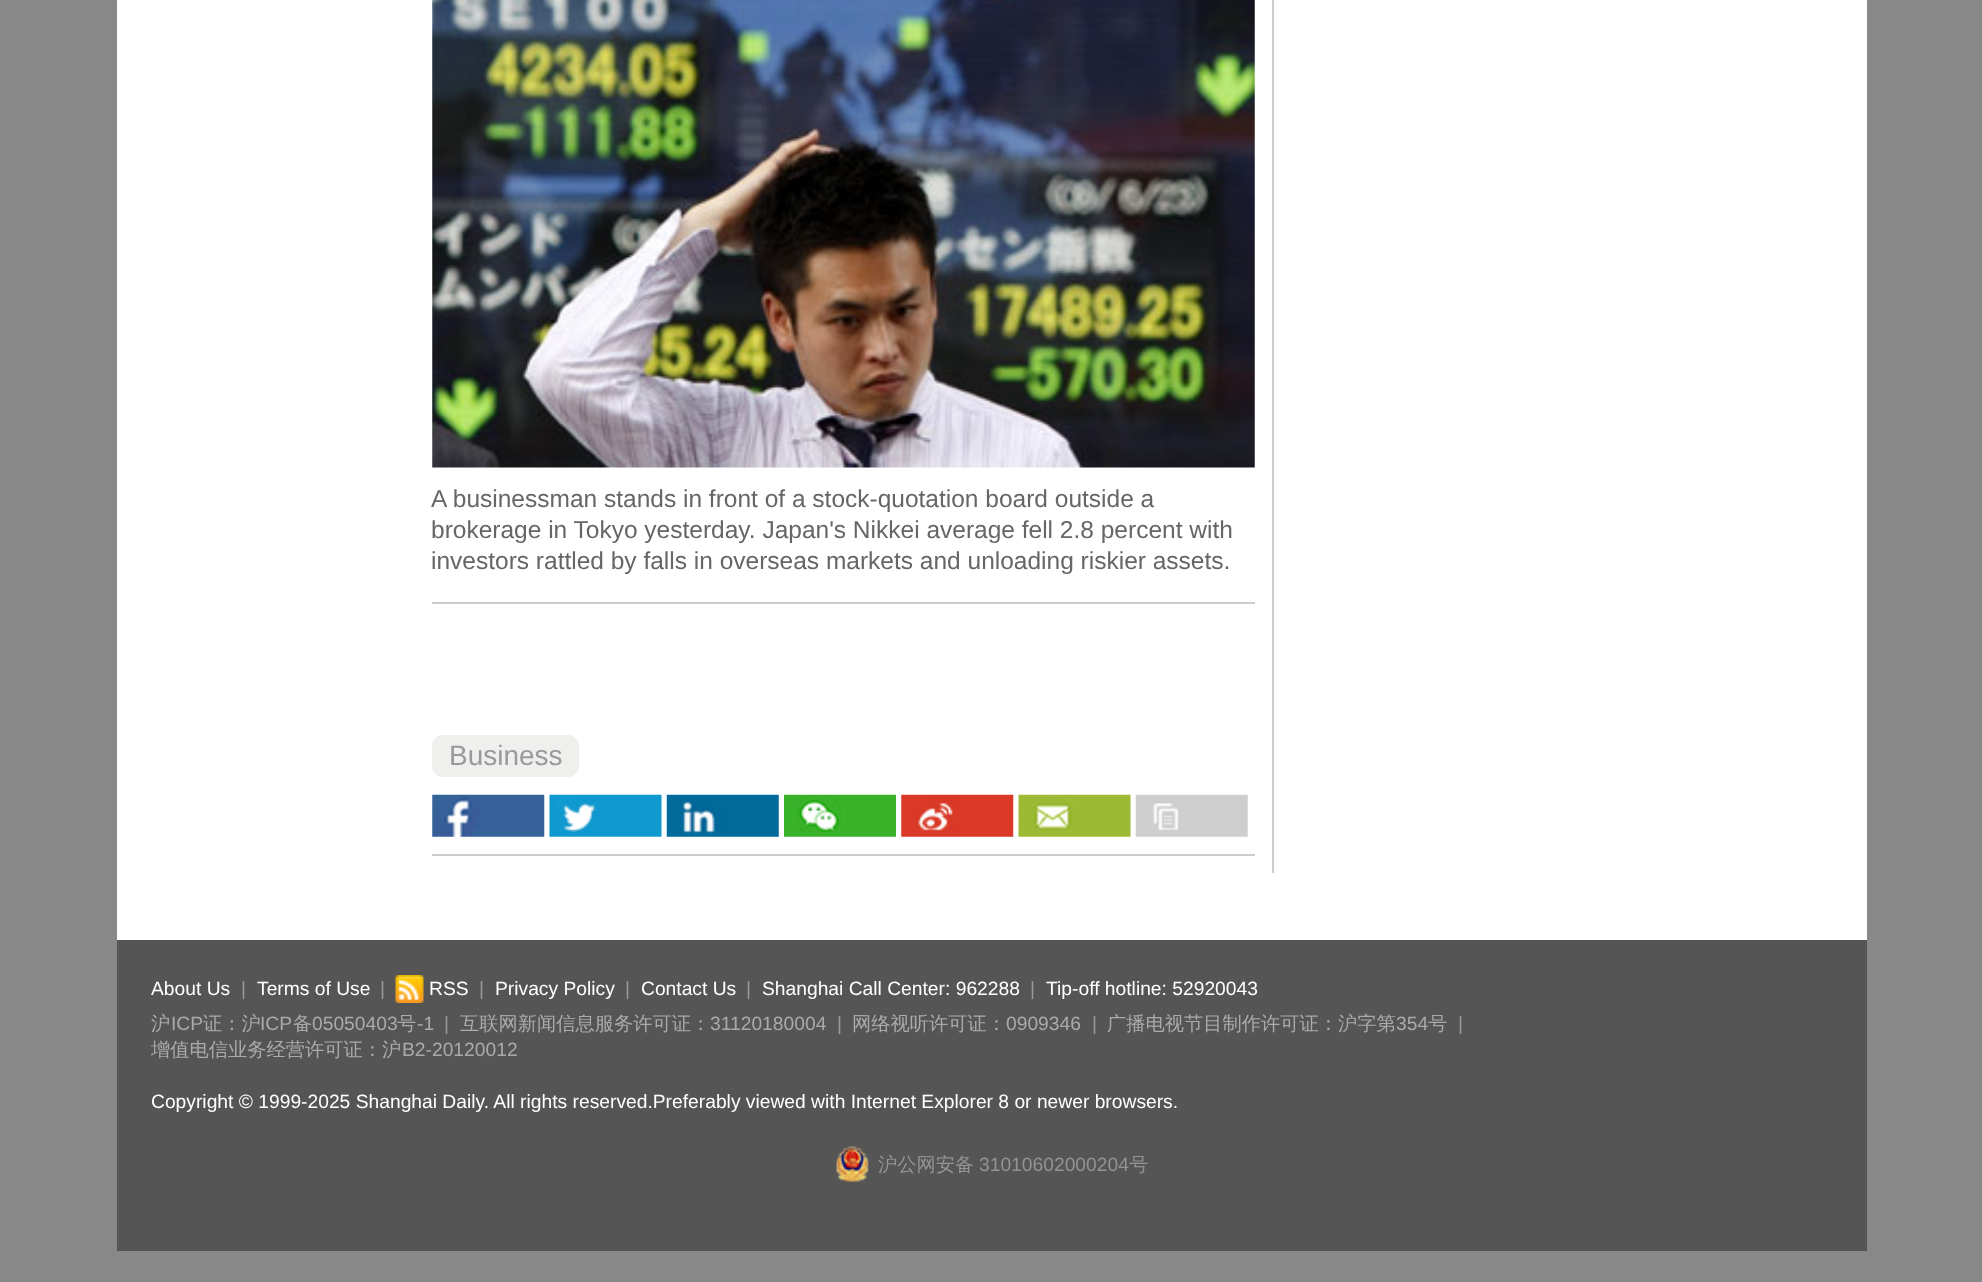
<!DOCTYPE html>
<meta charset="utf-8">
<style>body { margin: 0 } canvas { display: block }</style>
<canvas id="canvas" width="1982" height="1282"></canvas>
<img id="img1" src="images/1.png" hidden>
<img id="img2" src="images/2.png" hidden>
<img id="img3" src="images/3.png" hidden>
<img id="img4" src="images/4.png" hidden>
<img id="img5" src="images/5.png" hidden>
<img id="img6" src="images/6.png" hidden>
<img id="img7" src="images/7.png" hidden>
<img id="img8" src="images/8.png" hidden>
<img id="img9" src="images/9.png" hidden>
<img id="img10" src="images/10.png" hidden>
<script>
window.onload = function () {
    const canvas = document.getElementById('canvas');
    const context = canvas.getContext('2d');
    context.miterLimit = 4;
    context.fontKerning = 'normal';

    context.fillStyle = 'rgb(136, 136, 136)';
    context.fillRect(0, 0, 1982, 1282);
    context.fillStyle = 'rgb(255, 255, 255)';
    context.fillRect(117, 0, 1750, 940);
    context.fillStyle = 'rgb(204, 204, 204)';
    context.fillRect(1272, 0, 2, 873);
    context.fillRect(432, 602, 823, 2);
    context.drawImage(document.getElementById('img1'), 432, 0, 823, 468);
    context.fillStyle = 'rgb(239, 239, 238)';
    context.beginPath();
    context.roundRect(432, 735, 147, 42, 11);
    context.fill();
    context.fillStyle = 'rgb(204, 204, 204)';
    context.fillRect(432, 854, 823, 2);
    context.drawImage(document.getElementById('img2'), 432, 794, 113, 43);
    context.drawImage(document.getElementById('img3'), 549, 794, 113, 43);
    context.drawImage(document.getElementById('img4'), 666, 794, 113, 43);
    context.drawImage(document.getElementById('img5'), 784, 794, 112, 43);
    context.drawImage(document.getElementById('img6'), 901, 794, 113, 43);
    context.drawImage(document.getElementById('img7'), 1018, 794, 113, 43);
    context.drawImage(document.getElementById('img8'), 1135, 794, 113, 43);
    context.fillStyle = 'rgb(85, 85, 85)';
    context.fillRect(117, 940, 1750, 311);
    context.drawImage(document.getElementById('img9'), 395, 975, 29, 28);
    context.drawImage(document.getElementById('img10'), 836, 1146, 33, 36);
    context.font = '24.5px Liberation Sans';
    context.fillStyle = 'rgb(102, 102, 102)';
    context.fillText('A businessman stands in front of a stock-quotation board outside a', 431, 507);
    context.fillText('brokerage in Tokyo yesterday. Japan\'s Nikkei average fell 2.8 percent with', 431, 538);
    context.fillText('investors rattled by falls in overseas markets and unloading riskier assets.', 431, 569);
    context.font = '28px Liberation Sans';
    context.fillStyle = 'rgb(153, 153, 153)';
    context.fillText('Business', 449, 765);
    context.font = '19.25px Liberation Sans';
    context.fillStyle = 'rgb(255, 255, 255)';
    context.fillText('About Us', 151, 995);
    context.fillStyle = 'rgb(153, 153, 153)';
    context.fillText('|', 241, 995);
    context.fillStyle = 'rgb(255, 255, 255)';
    context.fillText('Terms of Use', 257, 995);
    context.fillStyle = 'rgb(153, 153, 153)';
    context.fillText('|', 380, 995);
    context.fillStyle = 'rgb(255, 255, 255)';
    context.fillText('RSS', 429, 995);
    context.fillStyle = 'rgb(153, 153, 153)';
    context.fillText('|', 479, 995);
    context.fillStyle = 'rgb(255, 255, 255)';
    context.fillText('Privacy Policy', 495, 995);
    context.fillStyle = 'rgb(153, 153, 153)';
    context.fillText('|', 625, 995);
    context.fillStyle = 'rgb(255, 255, 255)';
    context.fillText('Contact Us', 641, 995);
    context.fillStyle = 'rgb(153, 153, 153)';
    context.fillText('|', 746, 995);
    context.fillStyle = 'rgb(255, 255, 255)';
    context.fillText('Shanghai Call Center: 962288', 762, 995);
    context.fillStyle = 'rgb(153, 153, 153)';
    context.fillText('|', 1030, 995);
    context.fillStyle = 'rgb(255, 255, 255)';
    context.fillText('Tip-off hotline: 52920043', 1046, 995);
    context.font = '500 19.25px WenQuanYi Zen Hei';
    context.fillStyle = 'rgb(170, 170, 170)';
    context.fillText('沪', 151, 1030);
    context.font = '19.25px Liberation Sans';
    context.fillText('ICP', 171, 1030);
    context.font = '500 19.25px WenQuanYi Zen Hei';
    context.fillText('证：沪', 203, 1030);
    context.font = '19.25px Liberation Sans';
    context.fillText('ICP', 260, 1030);
    context.font = '500 19.25px WenQuanYi Zen Hei';
    context.fillText('备', 293, 1030);
    context.font = '19.25px Liberation Sans';
    context.fillText('05050403', 312, 1030);
    context.font = '500 19.25px WenQuanYi Zen Hei';
    context.fillText('号', 397, 1030);
    context.font = '19.25px Liberation Sans';
    context.fillText('-1', 417, 1030);
    context.fillStyle = 'rgb(153, 153, 153)';
    context.fillText('|', 444, 1030);
    context.font = '500 19.25px WenQuanYi Zen Hei';
    context.fillStyle = 'rgb(170, 170, 170)';
    context.fillText('互联网新闻信息服务许可证：', 460, 1030);
    context.font = '19.25px Liberation Sans';
    context.fillText('31120180004', 710, 1030);
    context.fillStyle = 'rgb(153, 153, 153)';
    context.fillText('|', 837, 1030);
    context.font = '500 19.25px WenQuanYi Zen Hei';
    context.fillStyle = 'rgb(170, 170, 170)';
    context.fillText('网络视听许可证：', 852, 1030);
    context.font = '19.25px Liberation Sans';
    context.fillText('0909346', 1006, 1030);
    context.fillStyle = 'rgb(153, 153, 153)';
    context.fillText('|', 1092, 1030);
    context.font = '500 19.25px WenQuanYi Zen Hei';
    context.fillStyle = 'rgb(170, 170, 170)';
    context.fillText('广播电视节目制作许可证：沪字第', 1107, 1030);
    context.font = '19.25px Liberation Sans';
    context.fillText('354', 1396, 1030);
    context.font = '500 19.25px WenQuanYi Zen Hei';
    context.fillText('号', 1428, 1030);
    context.font = '19.25px Liberation Sans';
    context.fillStyle = 'rgb(153, 153, 153)';
    context.fillText('|', 1458, 1030);
    context.font = '500 19.25px WenQuanYi Zen Hei';
    context.fillStyle = 'rgb(170, 170, 170)';
    context.fillText('增值电信业务经营许可证：沪', 151, 1056);
    context.font = '19.25px Liberation Sans';
    context.fillText('B2-20120012', 402, 1056);
    context.fillStyle = 'rgb(255, 255, 255)';
    context.fillText('Copyright © 1999-2025 Shanghai Daily. All rights reserved.Preferably viewed with Internet Explorer 8 or newer browsers.', 151, 1108);
    context.font = '500 19.25px WenQuanYi Zen Hei';
    context.fillStyle = 'rgb(147, 147, 147)';
    context.fillText('沪公网安备', 878, 1171);
    context.font = '19.25px Liberation Sans';
    context.fillText('31010602000204', 979, 1171);
    context.font = '500 19.25px WenQuanYi Zen Hei';
    context.fillText('号', 1129, 1171);
};
</script>
